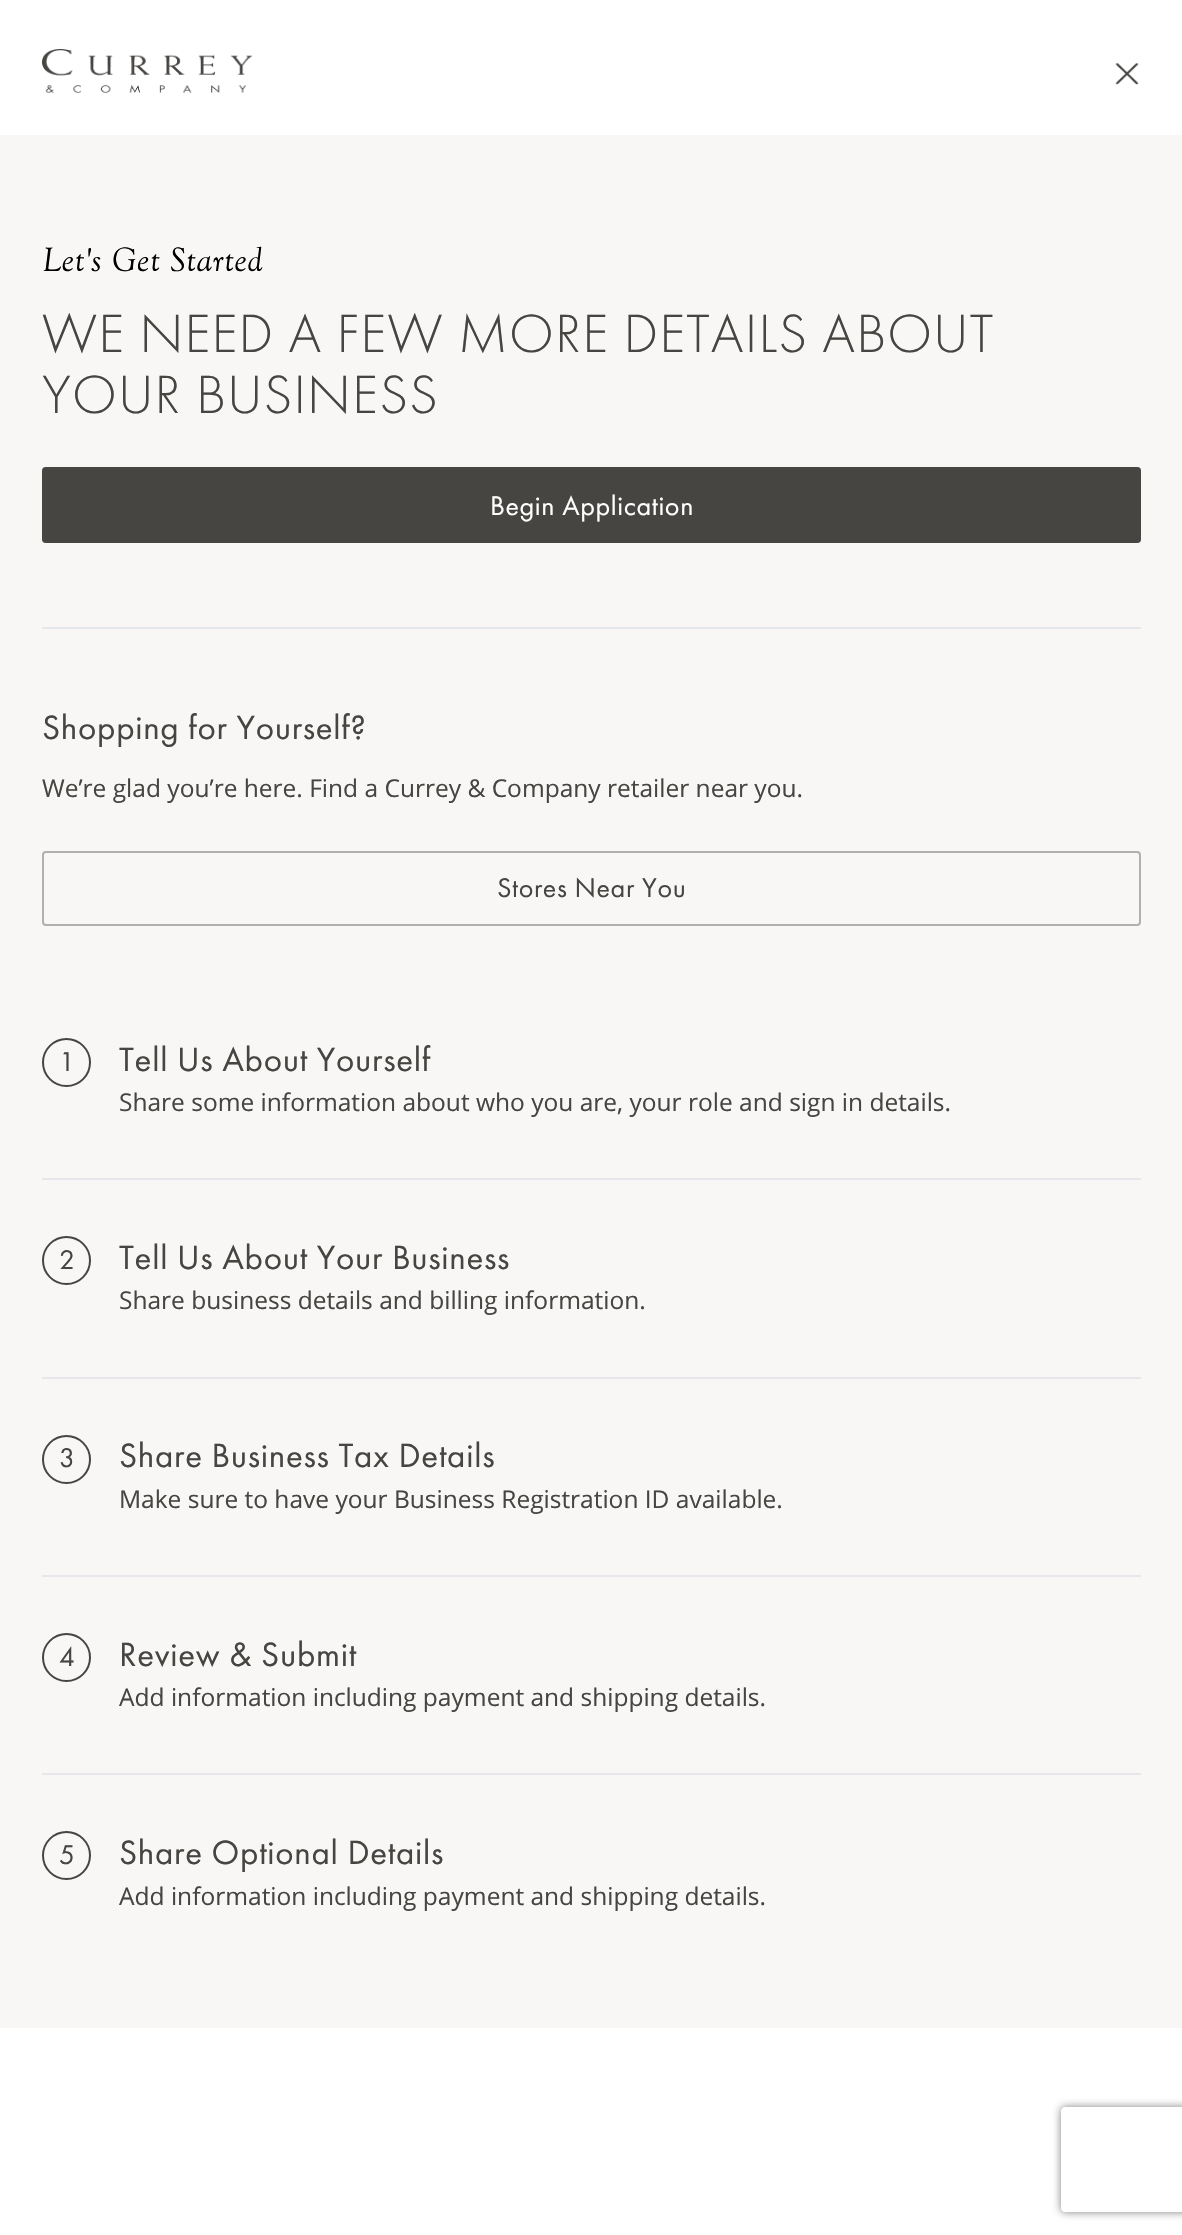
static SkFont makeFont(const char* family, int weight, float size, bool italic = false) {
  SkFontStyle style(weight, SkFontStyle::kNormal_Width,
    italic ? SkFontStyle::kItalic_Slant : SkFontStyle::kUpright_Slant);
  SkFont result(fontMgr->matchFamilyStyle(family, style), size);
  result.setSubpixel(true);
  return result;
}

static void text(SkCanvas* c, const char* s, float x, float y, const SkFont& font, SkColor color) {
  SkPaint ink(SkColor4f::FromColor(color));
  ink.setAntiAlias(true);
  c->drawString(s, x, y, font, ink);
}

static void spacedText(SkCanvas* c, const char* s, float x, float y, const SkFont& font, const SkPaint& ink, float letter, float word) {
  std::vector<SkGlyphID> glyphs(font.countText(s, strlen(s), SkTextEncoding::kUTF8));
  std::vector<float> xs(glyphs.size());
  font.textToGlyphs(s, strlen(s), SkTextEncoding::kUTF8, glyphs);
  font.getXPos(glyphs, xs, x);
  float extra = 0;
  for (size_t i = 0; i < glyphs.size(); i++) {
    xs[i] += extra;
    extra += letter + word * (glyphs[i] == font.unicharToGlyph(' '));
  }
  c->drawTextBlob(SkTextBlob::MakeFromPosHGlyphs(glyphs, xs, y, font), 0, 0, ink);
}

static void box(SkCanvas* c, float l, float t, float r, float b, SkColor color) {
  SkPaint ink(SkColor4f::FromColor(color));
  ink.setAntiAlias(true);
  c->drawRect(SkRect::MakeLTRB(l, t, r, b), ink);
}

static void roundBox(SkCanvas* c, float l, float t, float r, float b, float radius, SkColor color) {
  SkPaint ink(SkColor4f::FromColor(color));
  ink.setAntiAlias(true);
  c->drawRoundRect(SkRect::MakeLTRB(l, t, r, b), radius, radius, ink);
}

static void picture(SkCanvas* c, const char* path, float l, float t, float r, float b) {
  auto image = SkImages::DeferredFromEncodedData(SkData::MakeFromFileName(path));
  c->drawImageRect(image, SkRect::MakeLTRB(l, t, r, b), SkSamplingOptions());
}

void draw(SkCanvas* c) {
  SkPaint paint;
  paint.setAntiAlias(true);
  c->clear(0xffffffff);
  picture(c, "img_01.png", 42, 49, 252, 93);
  picture(c, "img_02.png", 1115, 62, 1139, 85);
  box(c, 0, 135, 1182, 2028, 0xfff8f7f6);
  box(c, 42, 627, 1141, 629, 0xffe5e7eb);
  SkFont face1 = makeFont("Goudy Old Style", 400, 35, true);
  paint.setColor(0xff000000);
  spacedText(c, "Let's Get Started", 42, 271, face1, paint, 0.7f, 0);
  SkFont face2 = makeFont("Futura PT", 300, 56);
  paint.setColor(0xff464542);
  spacedText(c, "WE NEED A FEW MORE DETAILS ABOUT", 42, 352, face2, paint, 1.1f, 0);
  spacedText(c, "YOUR BUSINESS", 42, 413, face2, paint, 1.1f, 0);
  roundBox(c, 42, 467, 1141, 543, 4, 0xff464542);
  paint.setStyle(SkPaint::kStroke_Style);
  paint.setStrokeWidth(2);
  paint.setColor(0x66464542);
  c->drawRoundRect(SkRect::MakeLTRB(43, 468, 1140, 542), 3, 3, paint);
  SkFont face3 = makeFont("Futura PT", 400, 28);
  paint.setStyle(SkPaint::kFill_Style);
  paint.setColor(0xffffffff);
  spacedText(c, "Begin Application", 490, 515, face3, paint, 0.6f, 0);
  SkFont face4 = makeFont("Futura PT", 400, 35);
  paint.setColor(0xff464542);
  spacedText(c, "Shopping for Yourself?", 42, 739, face4, paint, 0.7f, 0);
  SkFont face5 = makeFont("Open Sans", 400, 24.5f);
  text(c, "We’re glad you’re here. Find a Currey & Company retailer near you.", 42, 797, face5, 0xff464542);
  paint.setStyle(SkPaint::kStroke_Style);
  paint.setColor(0xffb1b0ae);
  c->drawRoundRect(SkRect::MakeLTRB(43, 852, 1140, 925), 3, 3, paint);
  paint.setStyle(SkPaint::kFill_Style);
  paint.setColor(0xff464542);
  spacedText(c, "Stores Near You", 497, 897, face3, paint, 0.6f, 0);
  box(c, 42, 1178, 1141, 1180, 0xffe5e7eb);
  paint.setStyle(SkPaint::kStroke_Style);
  c->drawCircle(66.5f, 1062.5f, 23.5f, paint);
  text(c, "1", 59, 1071, face3, 0xff464542);
  paint.setStyle(SkPaint::kFill_Style);
  spacedText(c, "Tell Us About Yourself", 119, 1071, face4, paint, 0.7f, 0);
  text(c, "Share some information about who you are, your role and sign in details.", 119, 1111, face5, 0xff464542);
  box(c, 42, 1377, 1141, 1379, 0xffe5e7eb);
  paint.setStyle(SkPaint::kStroke_Style);
  c->drawCircle(66.5f, 1260.5f, 23.5f, paint);
  text(c, "2", 59, 1269, face3, 0xff464542);
  paint.setStyle(SkPaint::kFill_Style);
  spacedText(c, "Tell Us About Your Business", 119, 1269, face4, paint, 0.7f, 0);
  text(c, "Share business details and billing information.", 119, 1309, face5, 0xff464542);
  box(c, 42, 1575, 1141, 1577, 0xffe5e7eb);
  paint.setStyle(SkPaint::kStroke_Style);
  c->drawCircle(66.5f, 1459.5f, 23.5f, paint);
  text(c, "3", 59, 1467, face3, 0xff464542);
  paint.setStyle(SkPaint::kFill_Style);
  spacedText(c, "Share Business Tax Details", 119, 1467, face4, paint, 0.7f, 0);
  text(c, "Make sure to have your Business Registration ID available.", 119, 1508, face5, 0xff464542);
  box(c, 42, 1773, 1141, 1775, 0xffe5e7eb);
  paint.setStyle(SkPaint::kStroke_Style);
  c->drawCircle(66.5f, 1657.5f, 23.5f, paint);
  text(c, "4", 59, 1666, face3, 0xff464542);
  paint.setStyle(SkPaint::kFill_Style);
  spacedText(c, "Review & Submit", 119, 1666, face4, paint, 0.7f, 0);
  text(c, "Add information including payment and shipping details.", 119, 1706, face5, 0xff464542);
  paint.setStyle(SkPaint::kStroke_Style);
  c->drawCircle(66.5f, 1855.5f, 23.5f, paint);
  text(c, "5", 59, 1864, face3, 0xff464542);
  paint.setStyle(SkPaint::kFill_Style);
  spacedText(c, "Share Optional Details", 119, 1864, face4, paint, 0.7f, 0);
  text(c, "Add information including payment and shipping details.", 119, 1905, face5, 0xff464542);
  c->save();
  c->clipPath(SkPathBuilder(SkPathFillType::kEvenOdd).moveTo(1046, 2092).lineTo(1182, 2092).lineTo(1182, 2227).lineTo(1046, 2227).close().moveTo(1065, 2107).lineTo(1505, 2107).cubicTo(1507, 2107, 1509, 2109, 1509, 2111).lineTo(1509, 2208).cubicTo(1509, 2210, 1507, 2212, 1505, 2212).lineTo(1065, 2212).cubicTo(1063, 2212, 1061, 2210, 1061, 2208).lineTo(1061, 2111).cubicTo(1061, 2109, 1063, 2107, 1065, 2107).close().detach(), true);
  paint.setColor(0xff808080);
  paint.setMaskFilter(SkMaskFilter::MakeBlur(kNormal_SkBlurStyle, 4.5f));
  c->drawRoundRect(SkRect::MakeLTRB(1061, 2107, 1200, 2212), 4, 4, paint);
  paint.setMaskFilter(nullptr);
  c->restore();
}
